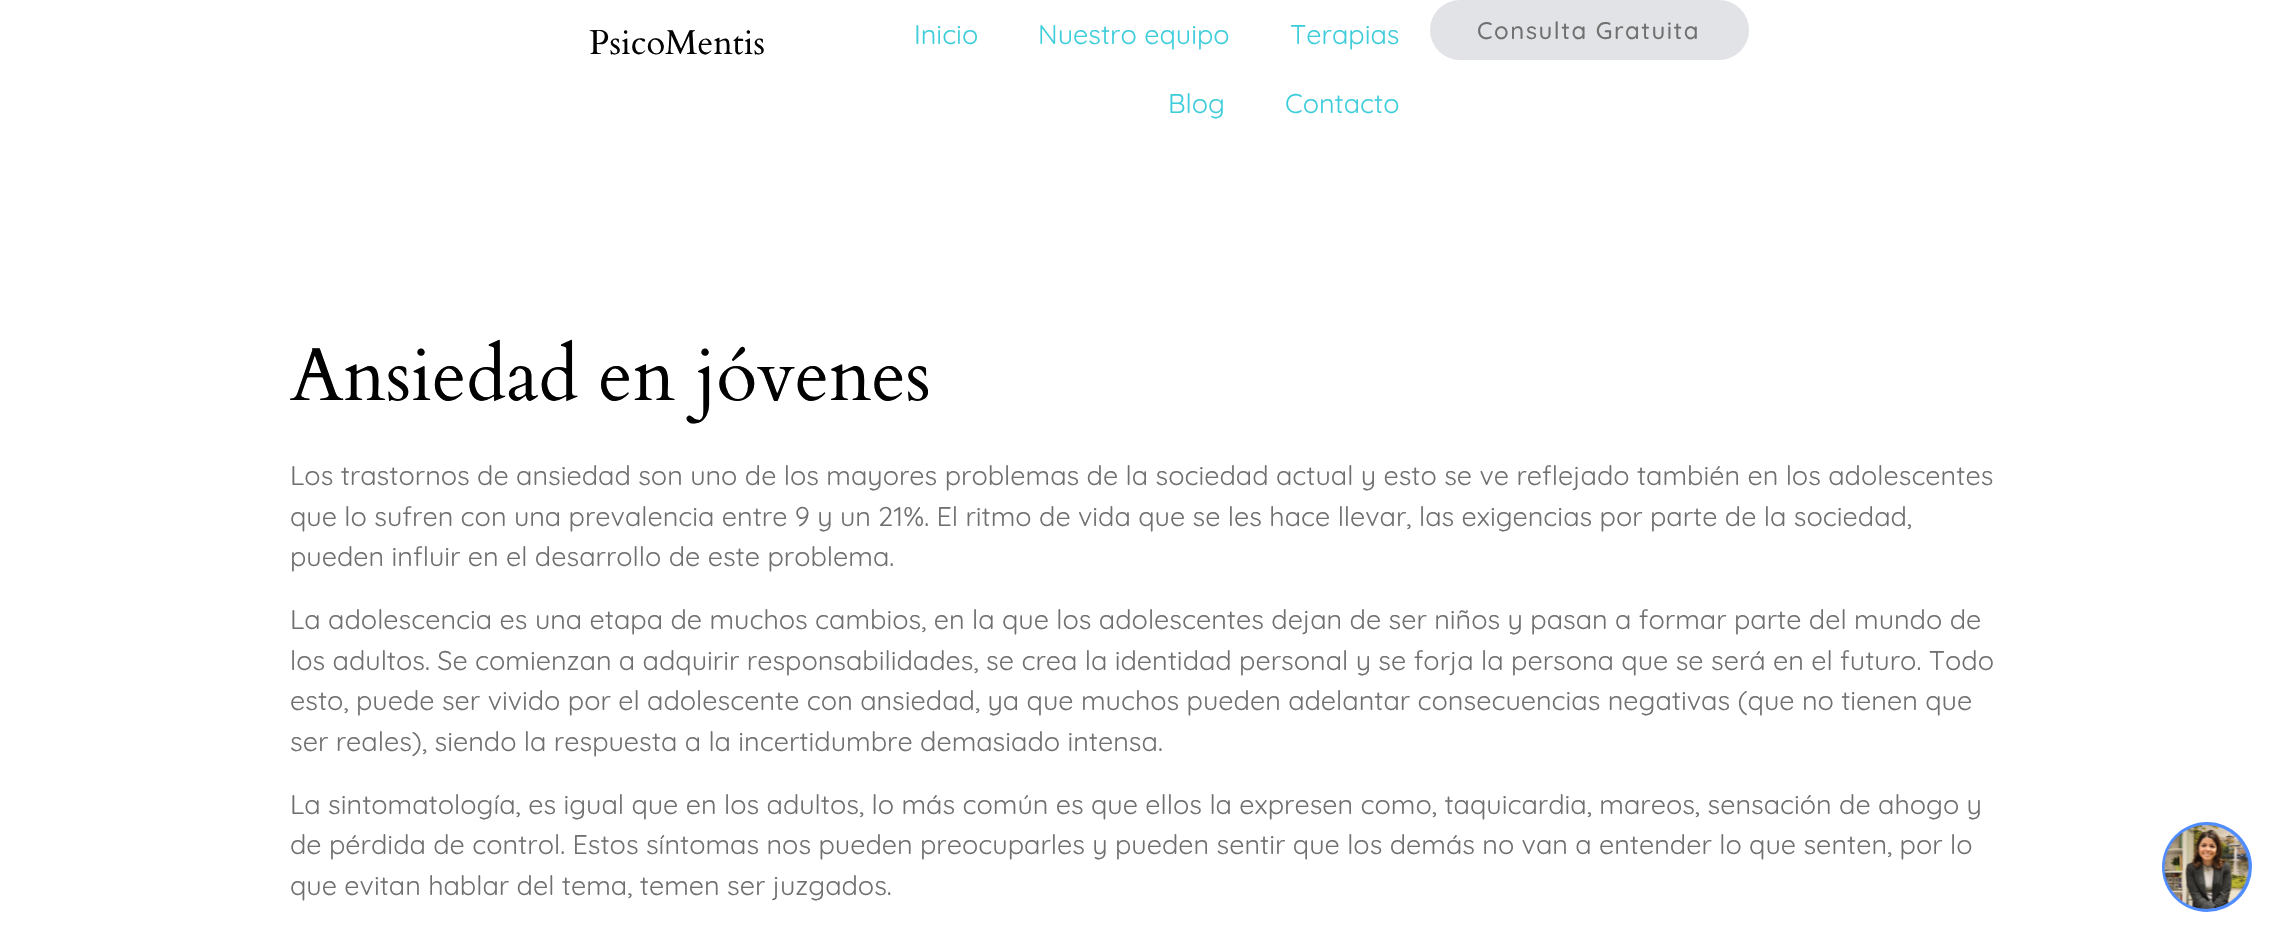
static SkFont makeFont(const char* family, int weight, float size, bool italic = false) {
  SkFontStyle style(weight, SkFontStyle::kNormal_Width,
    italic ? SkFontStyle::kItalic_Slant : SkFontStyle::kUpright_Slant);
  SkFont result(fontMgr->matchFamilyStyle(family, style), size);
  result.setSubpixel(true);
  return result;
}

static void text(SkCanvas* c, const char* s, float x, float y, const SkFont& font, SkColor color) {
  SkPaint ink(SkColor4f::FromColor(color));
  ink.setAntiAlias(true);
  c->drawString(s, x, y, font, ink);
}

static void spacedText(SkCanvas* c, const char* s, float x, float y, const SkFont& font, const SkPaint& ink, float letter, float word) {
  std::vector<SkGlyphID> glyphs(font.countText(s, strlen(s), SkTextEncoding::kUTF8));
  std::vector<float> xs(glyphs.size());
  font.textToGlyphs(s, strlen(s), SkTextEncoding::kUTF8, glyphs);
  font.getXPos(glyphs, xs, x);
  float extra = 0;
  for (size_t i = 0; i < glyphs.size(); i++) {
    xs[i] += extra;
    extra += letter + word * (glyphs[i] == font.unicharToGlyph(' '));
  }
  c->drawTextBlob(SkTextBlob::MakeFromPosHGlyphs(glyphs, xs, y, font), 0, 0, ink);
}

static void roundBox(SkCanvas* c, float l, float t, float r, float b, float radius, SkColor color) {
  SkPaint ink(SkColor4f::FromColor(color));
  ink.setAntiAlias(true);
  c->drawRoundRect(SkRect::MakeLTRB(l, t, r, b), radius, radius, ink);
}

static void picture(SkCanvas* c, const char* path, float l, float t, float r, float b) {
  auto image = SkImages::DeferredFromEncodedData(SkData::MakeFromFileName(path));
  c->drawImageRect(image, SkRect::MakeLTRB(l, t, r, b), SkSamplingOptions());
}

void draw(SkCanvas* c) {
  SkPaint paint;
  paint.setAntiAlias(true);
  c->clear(0xffffffff);
  SkFont face1 = makeFont("Cardo", 400, 34.5f);
  text(c, "PsicoMentis", 589, 54, face1, 0xff010101);
  SkFont face2 = makeFont("Quicksand", 400, 27);
  text(c, "Inicio", 914, 44, face2, 0xff3ecddb);
  text(c, "Nuestro equipo", 1038, 44, face2, 0xff3ecddb);
  text(c, "Terapias", 1290, 44, face2, 0xff3ecddb);
  text(c, "Blog", 1168, 113, face2, 0xff3ecddb);
  text(c, "Contacto", 1285, 113, face2, 0xff3ecddb);
  roundBox(c, 1430, 0, 1749, 60, 30, 0xffe2e3e6);
  SkFont face3 = makeFont("Quicksand", 500, 24);
  paint.setColor(0xff707070);
  spacedText(c, "Consulta Gratuita", 1477, 39, face3, paint, 1.5f, 0);
  SkFont face4 = makeFont("Cardo", 400, 75);
  text(c, "Ansiedad en jóvenes", 290, 400, face4, 0xff010101);
  text(c, "Los trastornos de ansiedad son uno de los mayores problemas de la sociedad actual y esto se ve reflejado también en los adolescentes", 290, 485, face2, 0xff707070);
  text(c, "que lo sufren con una prevalencia entre 9 y un 21%. El ritmo de vida que se les hace llevar, las exigencias por parte de la sociedad,", 290, 526, face2, 0xff707070);
  text(c, "pueden influir en el desarrollo de este problema.", 290, 566, face2, 0xff707070);
  text(c, "La adolescencia es una etapa de muchos cambios, en la que los adolescentes dejan de ser niños y pasan a formar parte del mundo de", 290, 629, face2, 0xff707070);
  text(c, "los adultos. Se comienzan a adquirir responsabilidades, se crea la identidad personal y se forja la persona que se será en el futuro. Todo", 290, 670, face2, 0xff707070);
  text(c, "esto, puede ser vivido por el adolescente con ansiedad, ya que muchos pueden adelantar consecuencias negativas (que no tienen que", 290, 710, face2, 0xff707070);
  text(c, "ser reales), siendo la respuesta a la incertidumbre demasiado intensa.", 290, 751, face2, 0xff707070);
  text(c, "La sintomatología, es igual que en los adultos, lo más común es que ellos la expresen como, taquicardia, mareos, sensación de ahogo y", 290, 814, face2, 0xff707070);
  text(c, "de pérdida de control. Estos síntomas nos pueden preocuparles y pueden sentir que los demás no van a entender lo que senten, por lo", 290, 854, face2, 0xff707070);
  text(c, "que evitan hablar del tema, temen ser juzgados.", 290, 895, face2, 0xff707070);
  paint.setColor(0xff4e8cff);
  c->drawCircle(2207, 867, 45, paint);
  picture(c, "img_01.png", 2164, 825, 2249, 909);
}
